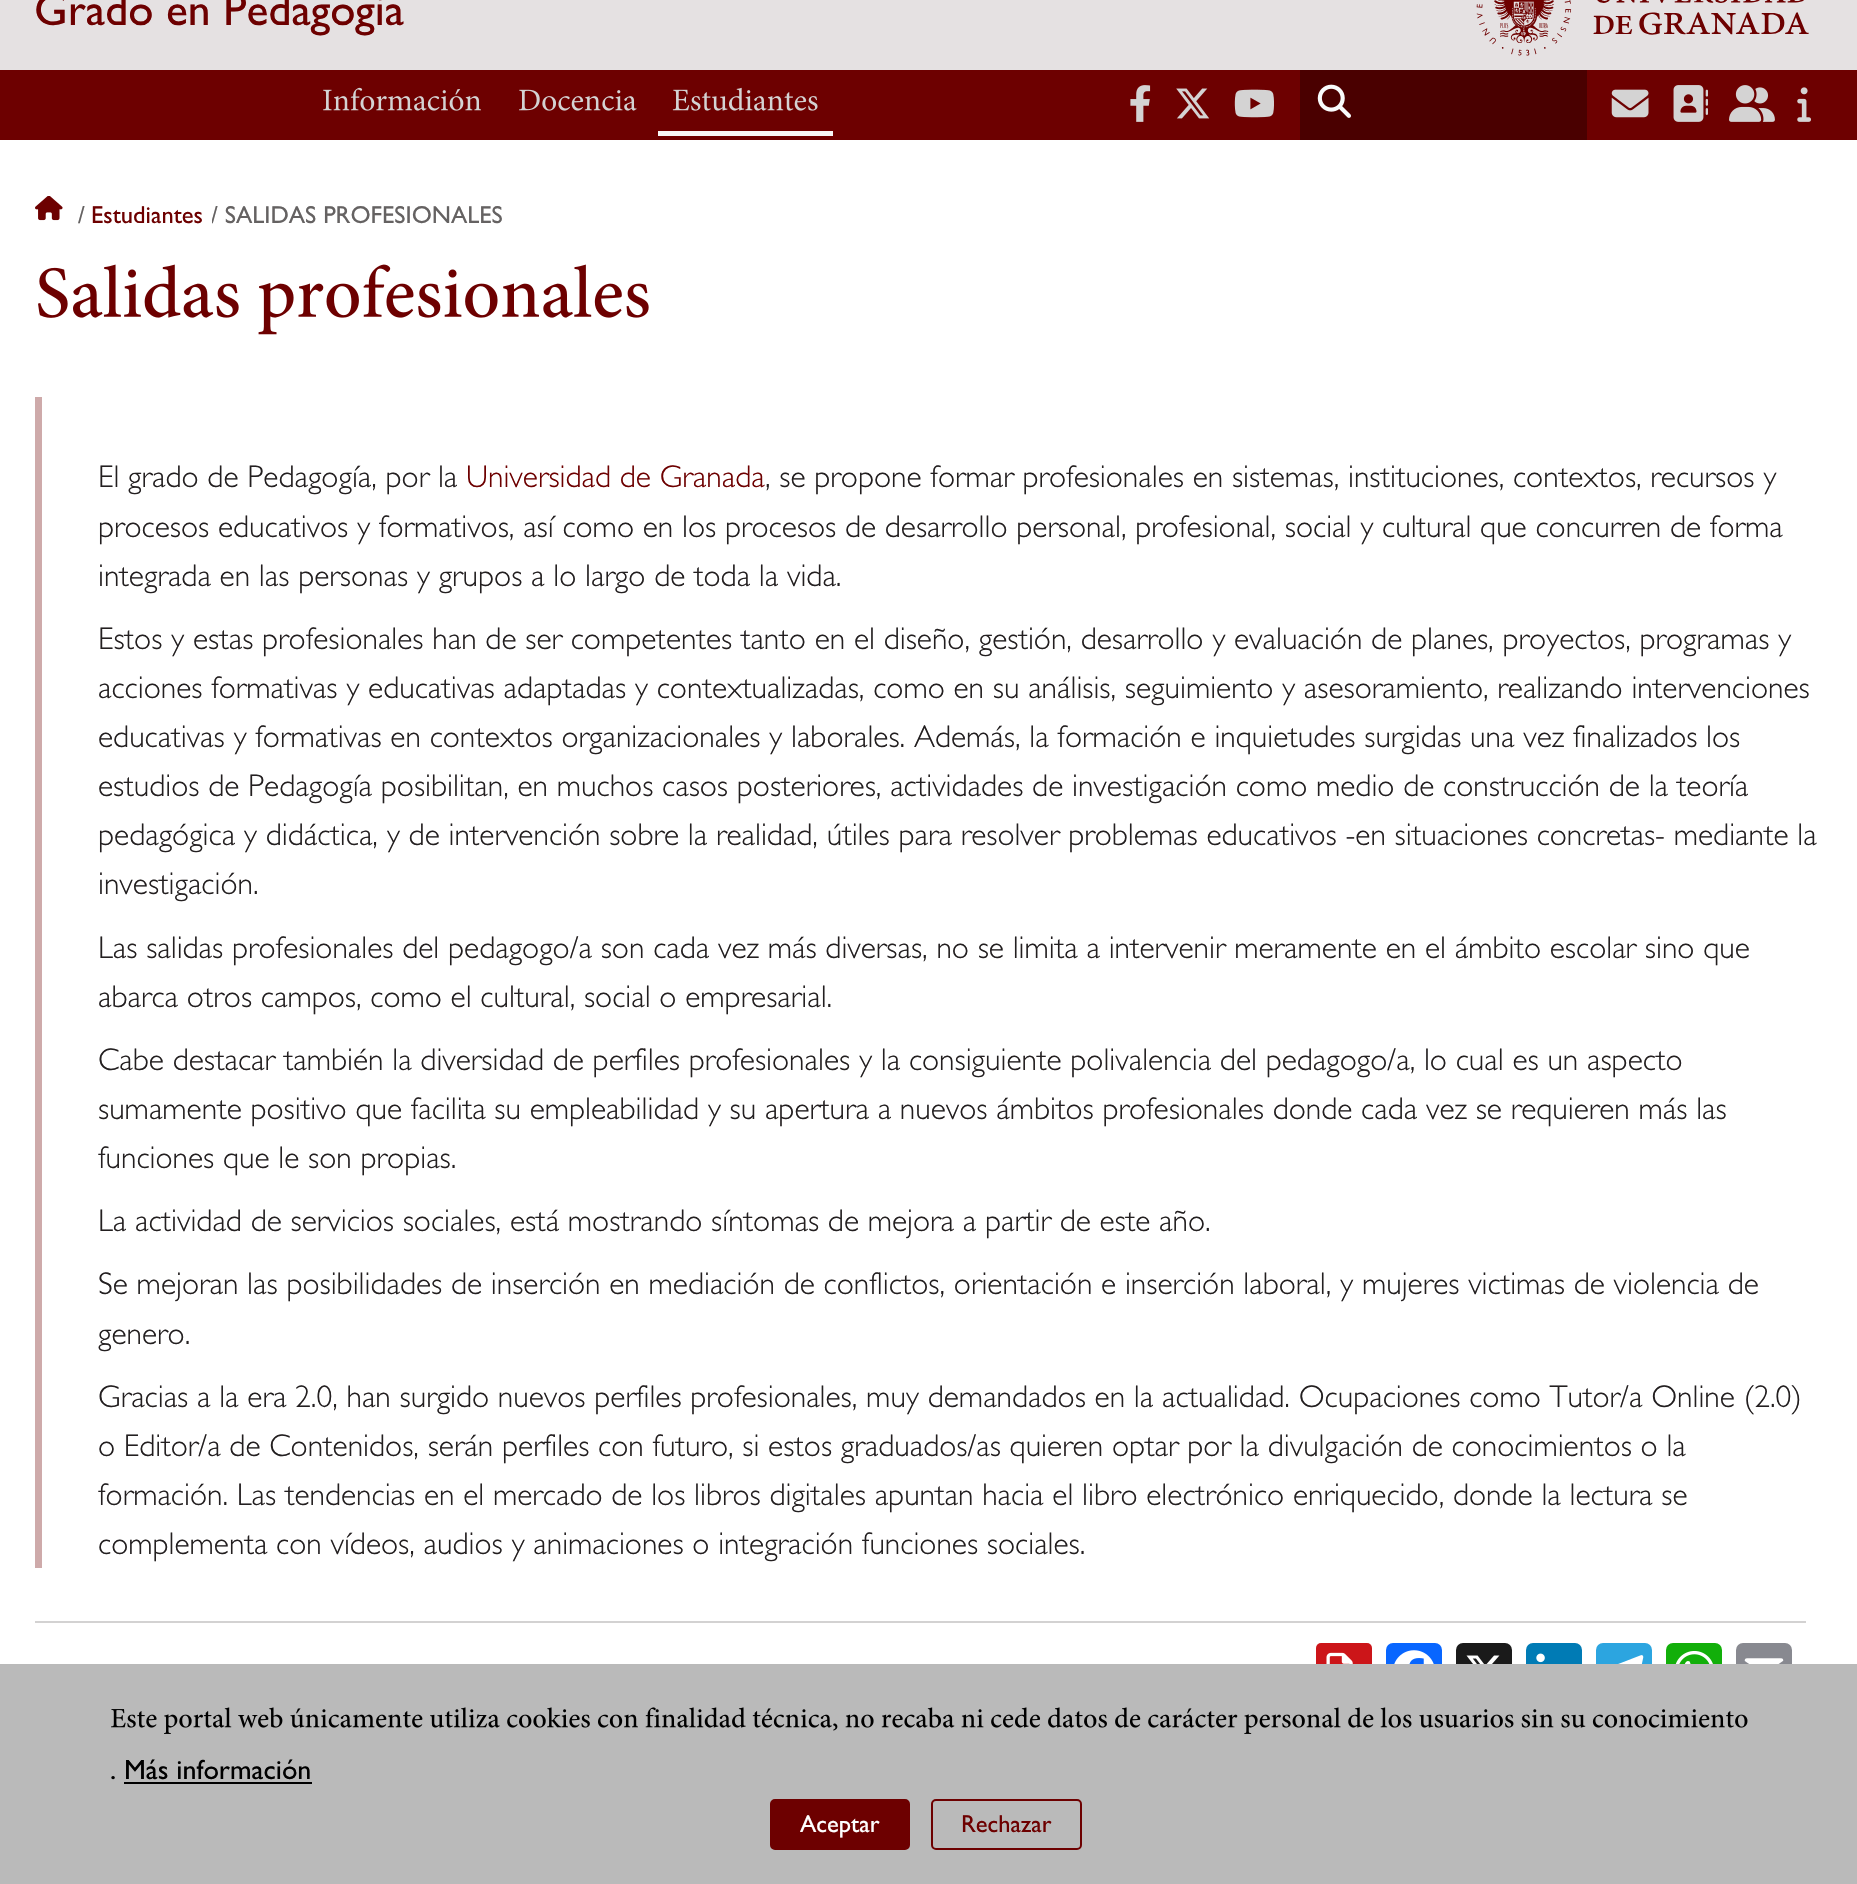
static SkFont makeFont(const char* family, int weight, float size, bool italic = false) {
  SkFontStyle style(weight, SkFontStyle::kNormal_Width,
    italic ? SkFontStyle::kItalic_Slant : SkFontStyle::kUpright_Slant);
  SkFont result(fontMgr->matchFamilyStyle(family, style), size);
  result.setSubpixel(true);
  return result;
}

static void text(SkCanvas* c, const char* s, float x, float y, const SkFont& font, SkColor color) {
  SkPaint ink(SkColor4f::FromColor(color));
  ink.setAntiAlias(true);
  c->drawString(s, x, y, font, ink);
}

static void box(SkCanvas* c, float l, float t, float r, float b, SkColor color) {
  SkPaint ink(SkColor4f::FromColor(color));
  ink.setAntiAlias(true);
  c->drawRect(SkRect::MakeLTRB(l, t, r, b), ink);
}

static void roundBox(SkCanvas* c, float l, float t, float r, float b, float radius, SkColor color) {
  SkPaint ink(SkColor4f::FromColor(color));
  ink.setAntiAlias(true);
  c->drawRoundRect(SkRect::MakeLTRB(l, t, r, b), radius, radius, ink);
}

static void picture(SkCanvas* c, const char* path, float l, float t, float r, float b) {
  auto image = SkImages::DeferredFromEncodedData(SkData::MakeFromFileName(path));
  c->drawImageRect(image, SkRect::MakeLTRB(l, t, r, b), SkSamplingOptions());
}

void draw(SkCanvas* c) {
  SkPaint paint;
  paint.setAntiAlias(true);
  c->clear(0xffffffff);
  box(c, 0, 70, 1857, 140, 0xff6d0000);
  box(c, 0, 0, 1857, 70, 0xffe5e1e2);
  SkFont face1 = makeFont("Gill Sans", 400, 45.5f);
  text(c, "Grado en Pedagogía", 34, 25, face1, 0xff6d0000);
  picture(c, "img_01.png", 1476, 0, 1809, 56);
  picture(c, "img_02.png", 323, 87, 481, 111);
  picture(c, "img_03.png", 519, 89, 637, 111);
  picture(c, "img_04.png", 672, 87, 818, 111);
  box(c, 658, 131, 833, 136, 0xfff7f7f7);
  picture(c, "img_05.png", 1130, 85, 1151, 122);
  picture(c, "img_06.png", 1176, 88, 1210, 119);
  picture(c, "img_07.png", 1234, 89, 1274, 118);
  box(c, 1300, 70, 1587, 140, 0xff4a0000);
  picture(c, "img_08.png", 1317, 84, 1351, 118);
  picture(c, "img_09.png", 1611, 89, 1649, 118);
  picture(c, "img_10.png", 1673, 85, 1708, 122);
  picture(c, "img_11.png", 1729, 85, 1775, 122);
  picture(c, "img_12.png", 1797, 87, 1811, 122);
  picture(c, "img_13.png", 35, 196, 63, 221);
  SkFont face2 = makeFont("Gill Sans", 400, 24.5f);
  text(c, "/", 78, 223, face2, 0xff656262);
  text(c, "Estudiantes", 91, 223, face2, 0xff6d0000);
  c->save();
  c->clipRect(SkRect::MakeLTRB(212, 196, 502, 231));
  text(c, "/ SALIDAS PROFESIONALES", 211, 223, face2, 0xff656262);
  c->restore();
  picture(c, "img_14.png", 38, 264, 649, 335);
  box(c, 35, 397, 42, 1568, 0xffceaaaa);
  SkFont face3 = makeFont("Gill Sans", 300, 31.5f);
  text(c, "El grado de Pedagogía, por la", 98, 487, face3, 0xff231f20);
  text(c, "Universidad de Granada", 466, 487, face3, 0xff6d0000);
  text(c, ", se propone formar profesionales en sistemas, instituciones, contextos, recursos y", 765, 487, face3, 0xff231f20);
  text(c, "procesos educativos y formativos, así como en los procesos de desarrollo personal, profesional, social y cultural que concurren de forma", 98, 537, face3, 0xff231f20);
  text(c, "integrada en las personas y grupos a lo largo de toda la vida.", 98, 586, face3, 0xff231f20);
  text(c, "Estos y estas profesionales han de ser competentes tanto en el diseño, gestión, desarrollo y evaluación de planes, proyectos, programas y", 98, 649, face3, 0xff231f20);
  text(c, "acciones formativas y educativas adaptadas y contextualizadas, como en su análisis, seguimiento y asesoramiento, realizando intervenciones", 98, 698, face3, 0xff231f20);
  text(c, "educativas y formativas en contextos organizacionales y laborales. Además, la formación e inquietudes surgidas una vez finalizados los", 98, 747, face3, 0xff231f20);
  text(c, "estudios de Pedagogía posibilitan, en muchos casos posteriores, actividades de investigación como medio de construcción de la teoría", 98, 796, face3, 0xff231f20);
  text(c, "pedagógica y didáctica, y de intervención sobre la realidad, útiles para resolver problemas educativos -en situaciones concretas- mediante la", 98, 845, face3, 0xff231f20);
  text(c, "investigación.", 98, 894, face3, 0xff231f20);
  text(c, "Las salidas profesionales del pedagogo/a son cada vez más diversas, no se limita a intervenir meramente en el ámbito escolar sino que", 98, 958, face3, 0xff231f20);
  text(c, "abarca otros campos, como el cultural, social o empresarial.", 98, 1007, face3, 0xff231f20);
  text(c, "Cabe destacar también la diversidad de perfiles profesionales y la consiguiente polivalencia del pedagogo/a, lo cual es un aspecto", 98, 1070, face3, 0xff231f20);
  text(c, "sumamente positivo que facilita su empleabilidad y su apertura a nuevos ámbitos profesionales donde cada vez se requieren más las", 98, 1119, face3, 0xff231f20);
  text(c, "funciones que le son propias.", 98, 1168, face3, 0xff231f20);
  text(c, "La actividad de servicios sociales, está mostrando síntomas de mejora a partir de este año.", 98, 1231, face3, 0xff231f20);
  text(c, "Se mejoran las posibilidades de inserción en mediación de conflictos, orientación e inserción laboral, y mujeres victimas de violencia de", 98, 1294, face3, 0xff231f20);
  text(c, "genero.", 98, 1344, face3, 0xff231f20);
  text(c, "Gracias a la era 2.0, han surgido nuevos perfiles profesionales, muy demandados en la actualidad. Ocupaciones como Tutor/a Online (2.0)", 98, 1407, face3, 0xff231f20);
  text(c, "o Editor/a de Contenidos, serán perfiles con futuro, si estos graduados/as quieren optar por la divulgación de conocimientos o la", 98, 1456, face3, 0xff231f20);
  text(c, "formación. Las tendencias en el mercado de los libros digitales apuntan hacia el libro electrónico enriquecido, donde la lectura se", 98, 1505, face3, 0xff231f20);
  text(c, "complementa con vídeos, audios y animaciones o integración funciones sociales.", 98, 1554, face3, 0xff231f20);
  box(c, 35, 1621, 1806, 1623, 0xffd3d2d2);
  roundBox(c, 1316, 1643, 1372, 1699, 5, 0xffcc1519);
  picture(c, "img_15.png", 1326, 1652, 1353, 1664);
  roundBox(c, 1386, 1643, 1442, 1699, 7, 0xff0866ff);
  picture(c, "img_16.png", 1394, 1650, 1434, 1664);
  roundBox(c, 1456, 1643, 1512, 1699, 7, 0xff1a1a1a);
  picture(c, "img_17.png", 1466, 1655, 1500, 1664);
  roundBox(c, 1526, 1643, 1582, 1699, 7, 0xff007bb5);
  picture(c, "img_18.png", 1536, 1653, 1545, 1663);
  roundBox(c, 1596, 1643, 1652, 1699, 7, 0xff2ca5e0);
  picture(c, "img_19.png", 1618, 1655, 1644, 1664);
  roundBox(c, 1666, 1643, 1722, 1699, 7, 0xff12af0a);
  picture(c, "img_20.png", 1675, 1651, 1713, 1664);
  roundBox(c, 1736, 1643, 1792, 1699, 7, 0xff888990);
  picture(c, "img_21.png", 1744, 1658, 1784, 1664);
  box(c, 0, 1664, 1857, 1884, 0xffbababa);
  picture(c, "img_22.png", 111, 1707, 1748, 1734);
  SkFont face4 = makeFont("Gill Sans", 400, 28);
  text(c, ". Más información", 110, 1779, face4, 0xff000000);
  box(c, 124, 1782, 312, 1784, 0xff000000);
  paint.setColor(0xff6d0000);
  c->drawRoundRect(SkRect::MakeLTRB(771, 1800, 909, 1849), 4, 4, paint);
  paint.setStyle(SkPaint::kStroke_Style);
  paint.setStrokeWidth(2);
  c->drawRoundRect(SkRect::MakeLTRB(771, 1800, 909, 1849), 4, 4, paint);
  text(c, "Aceptar", 800, 1832, face2, 0xfffeffff);
  c->drawRoundRect(SkRect::MakeLTRB(932, 1800, 1081, 1849), 4, 4, paint);
  text(c, "Rechazar", 961, 1832, face2, 0xff6d0000);
}
